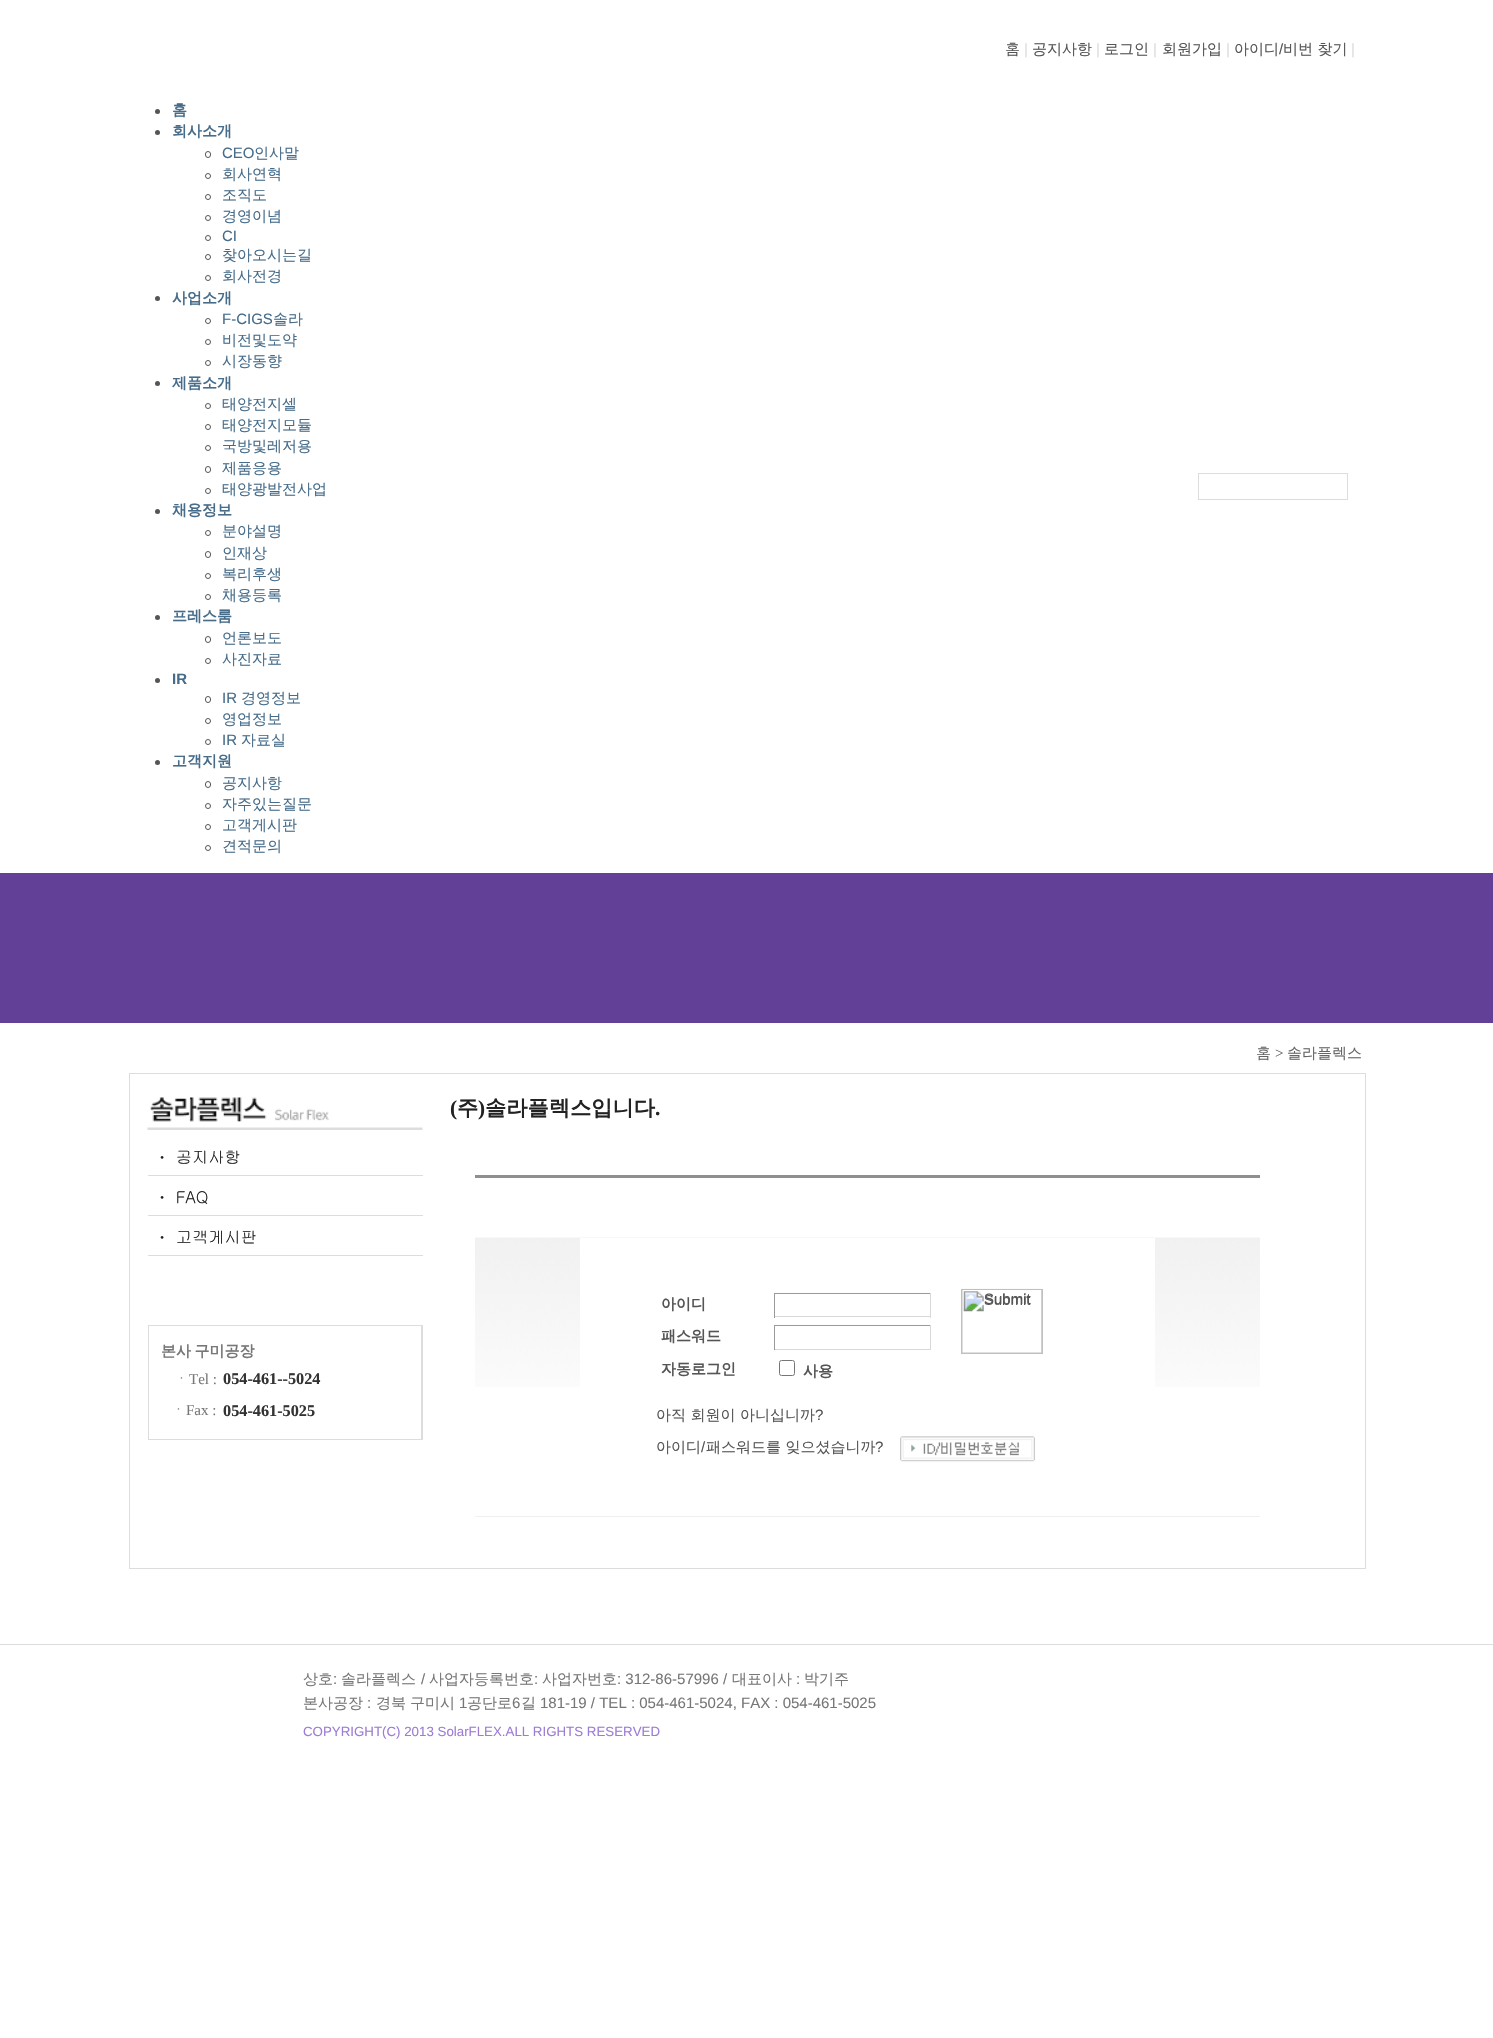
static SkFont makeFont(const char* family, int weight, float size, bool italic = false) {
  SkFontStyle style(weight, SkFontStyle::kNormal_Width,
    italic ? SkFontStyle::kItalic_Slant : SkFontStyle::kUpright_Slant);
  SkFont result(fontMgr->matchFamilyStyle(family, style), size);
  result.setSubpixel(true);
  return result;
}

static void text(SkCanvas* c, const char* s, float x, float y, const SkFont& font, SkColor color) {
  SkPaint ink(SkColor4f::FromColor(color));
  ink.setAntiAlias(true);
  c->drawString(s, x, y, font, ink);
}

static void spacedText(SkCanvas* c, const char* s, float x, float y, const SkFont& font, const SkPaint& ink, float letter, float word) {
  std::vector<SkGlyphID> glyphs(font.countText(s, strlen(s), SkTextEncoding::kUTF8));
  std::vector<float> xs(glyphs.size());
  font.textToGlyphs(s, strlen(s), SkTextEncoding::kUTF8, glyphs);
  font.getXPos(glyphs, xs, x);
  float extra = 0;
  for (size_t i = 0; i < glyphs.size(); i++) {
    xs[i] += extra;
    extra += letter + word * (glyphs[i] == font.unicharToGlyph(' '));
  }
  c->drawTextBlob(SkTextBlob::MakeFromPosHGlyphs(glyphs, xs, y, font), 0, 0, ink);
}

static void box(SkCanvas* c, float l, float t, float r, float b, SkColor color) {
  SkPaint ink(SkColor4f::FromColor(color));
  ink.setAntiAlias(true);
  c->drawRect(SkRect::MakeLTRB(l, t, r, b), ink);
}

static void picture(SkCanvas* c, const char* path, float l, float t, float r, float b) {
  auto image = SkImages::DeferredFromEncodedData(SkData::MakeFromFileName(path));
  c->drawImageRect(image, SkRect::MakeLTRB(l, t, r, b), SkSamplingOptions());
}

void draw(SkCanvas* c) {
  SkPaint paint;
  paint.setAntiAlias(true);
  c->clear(0xffffffff);
  SkFont face1 = makeFont("WenQuanYi Zen Hei", 500, 15);
  text(c, "홈", 1005, 54, face1, 0xff555555);
  SkFont face2 = makeFont("Liberation Sans", 400, 15);
  text(c, "|", 1024, 54, face2, 0xffdddddd);
  text(c, "공지사항", 1032, 54, face1, 0xff555555);
  text(c, "|", 1096, 54, face2, 0xffdddddd);
  text(c, "로그인", 1104, 54, face1, 0xff555555);
  text(c, "|", 1153, 54, face2, 0xffdddddd);
  text(c, "회원가입", 1162, 54, face1, 0xff555555);
  text(c, "|", 1226, 54, face2, 0xffdddddd);
  text(c, "아이디", 1234, 54, face1, 0xff555555);
  text(c, "/", 1279, 54, face2, 0xff555555);
  text(c, "비번 찾기", 1283, 54, face1, 0xff555555);
  text(c, "|", 1351, 54, face2, 0xffdddddd);
  paint.setColor(0xff555555);
  c->drawCircle(157.5f, 111.5f, 2.5f, paint);
  SkFont face3 = makeFont("WenQuanYi Zen Hei", 700, 15);
  text(c, "홈", 172, 115, face3, 0xff466c8a);
  c->drawCircle(157.5f, 132.5f, 2.5f, paint);
  text(c, "회사소개", 172, 136, face3, 0xff466c8a);
  paint.setStyle(SkPaint::kStroke_Style);
  paint.setStrokeWidth(1);
  c->drawRoundRect(SkRect::MakeLTRB(205.5f, 151.5f, 210.5f, 157.5f), 2.5f, 2.5f, paint);
  text(c, "CEO", 222, 158, face2, 0xff466c8a);
  text(c, "인사말", 254, 158, face1, 0xff466c8a);
  c->drawCircle(208, 176, 2.5f, paint);
  text(c, "회사연혁", 222, 179, face1, 0xff466c8a);
  c->drawCircle(208, 197, 2.5f, paint);
  text(c, "조직도", 222, 200, face1, 0xff466c8a);
  c->drawCircle(208, 218, 2.5f, paint);
  text(c, "경영이념", 222, 221, face1, 0xff466c8a);
  c->drawCircle(208, 238, 2.5f, paint);
  text(c, "CI", 222, 241, face2, 0xff466c8a);
  c->drawCircle(208, 257, 2.5f, paint);
  text(c, "찾아오시는길", 222, 260, face1, 0xff466c8a);
  c->drawCircle(208, 278, 2.5f, paint);
  text(c, "회사전경", 222, 281, face1, 0xff466c8a);
  paint.setStyle(SkPaint::kFill_Style);
  c->drawCircle(157.5f, 298.5f, 2.5f, paint);
  text(c, "사업소개", 172, 303, face3, 0xff466c8a);
  paint.setStyle(SkPaint::kStroke_Style);
  c->drawCircle(208, 321, 2.5f, paint);
  text(c, "F-CIGS", 222, 324, face2, 0xff466c8a);
  text(c, "솔라", 273, 324, face1, 0xff466c8a);
  c->drawCircle(208, 342, 2.5f, paint);
  text(c, "비전및도약", 222, 345, face1, 0xff466c8a);
  c->drawCircle(208, 363, 2.5f, paint);
  text(c, "시장동향", 222, 366, face1, 0xff466c8a);
  paint.setStyle(SkPaint::kFill_Style);
  c->drawCircle(157.5f, 383.5f, 2.5f, paint);
  text(c, "제품소개", 172, 388, face3, 0xff466c8a);
  paint.setStyle(SkPaint::kStroke_Style);
  c->drawCircle(208, 406, 2.5f, paint);
  text(c, "태양전지셀", 222, 409, face1, 0xff466c8a);
  c->drawCircle(208, 427, 2.5f, paint);
  text(c, "태양전지모듈", 222, 430, face1, 0xff466c8a);
  c->drawCircle(208, 448, 2.5f, paint);
  text(c, "국방및레저용", 222, 451, face1, 0xff466c8a);
  c->drawRoundRect(SkRect::MakeLTRB(205.5f, 466.5f, 210.5f, 472.5f), 2.5f, 2.5f, paint);
  text(c, "제품응용", 222, 473, face1, 0xff466c8a);
  c->drawCircle(208, 491, 2.5f, paint);
  text(c, "태양광발전사업", 222, 494, face1, 0xff466c8a);
  paint.setStyle(SkPaint::kFill_Style);
  c->drawCircle(157.5f, 511.5f, 2.5f, paint);
  text(c, "채용정보", 172, 515, face3, 0xff466c8a);
  paint.setStyle(SkPaint::kStroke_Style);
  c->drawCircle(208, 533, 2.5f, paint);
  text(c, "분야설명", 222, 536, face1, 0xff466c8a);
  c->drawRoundRect(SkRect::MakeLTRB(205.5f, 551.5f, 210.5f, 557.5f), 2.5f, 2.5f, paint);
  text(c, "인재상", 222, 558, face1, 0xff466c8a);
  c->drawCircle(208, 576, 2.5f, paint);
  text(c, "복리후생", 222, 579, face1, 0xff466c8a);
  c->drawCircle(208, 597, 2.5f, paint);
  text(c, "채용등록", 222, 600, face1, 0xff466c8a);
  paint.setStyle(SkPaint::kFill_Style);
  c->drawCircle(157.5f, 617.5f, 2.5f, paint);
  text(c, "프레스룸", 172, 621, face3, 0xff466c8a);
  paint.setStyle(SkPaint::kStroke_Style);
  c->drawRoundRect(SkRect::MakeLTRB(205.5f, 636.5f, 210.5f, 642.5f), 2.5f, 2.5f, paint);
  text(c, "언론보도", 222, 643, face1, 0xff466c8a);
  c->drawCircle(208, 661, 2.5f, paint);
  text(c, "사진자료", 222, 664, face1, 0xff466c8a);
  paint.setStyle(SkPaint::kFill_Style);
  c->drawCircle(157.5f, 680.5f, 2.5f, paint);
  SkFont face4 = makeFont("Liberation Sans", 700, 15);
  text(c, "IR", 172, 684, face4, 0xff466c8a);
  paint.setStyle(SkPaint::kStroke_Style);
  c->drawRoundRect(SkRect::MakeLTRB(205.5f, 696.5f, 210.5f, 702.5f), 2.5f, 2.5f, paint);
  text(c, "IR", 222, 703, face2, 0xff466c8a);
  text(c, "경영정보", 241, 703, face1, 0xff466c8a);
  c->drawCircle(208, 721, 2.5f, paint);
  text(c, "영업정보", 222, 724, face1, 0xff466c8a);
  c->drawCircle(208, 742, 2.5f, paint);
  text(c, "IR", 222, 745, face2, 0xff466c8a);
  text(c, "자료실", 241, 745, face1, 0xff466c8a);
  paint.setStyle(SkPaint::kFill_Style);
  c->drawCircle(157.5f, 762.5f, 2.5f, paint);
  text(c, "고객지원", 172, 766, face3, 0xff466c8a);
  paint.setStyle(SkPaint::kStroke_Style);
  c->drawRoundRect(SkRect::MakeLTRB(205.5f, 781.5f, 210.5f, 787.5f), 2.5f, 2.5f, paint);
  text(c, "공지사항", 222, 788, face1, 0xff466c8a);
  c->drawCircle(208, 806, 2.5f, paint);
  text(c, "자주있는질문", 222, 809, face1, 0xff466c8a);
  c->drawCircle(208, 827, 2.5f, paint);
  text(c, "고객게시판", 222, 830, face1, 0xff466c8a);
  c->drawCircle(208, 848, 2.5f, paint);
  text(c, "견적문의", 222, 851, face1, 0xff466c8a);
  paint.setColor(0xffdddddd);
  c->drawRect(SkRect::MakeLTRB(1198.5f, 473.5f, 1347.5f, 499.5f), paint);
  box(c, 0, 873, 1493, 1023, 0xff624097);
  text(c, "홈", 1256, 1058, face1, 0xff666666);
  SkFont face5 = makeFont("Liberation Serif", 400, 15);
  text(c, ">", 1275, 1058, face5, 0xff666666);
  text(c, "솔라플렉스", 1287, 1058, face1, 0xff666666);
  box(c, 129, 1073, 1366, 1569, 0xffdddddd);
  box(c, 130, 1074, 1365, 1568, 0xffffffff);
  picture(c, "img_01.png", 147, 1097, 423, 1130);
  box(c, 148, 1175, 423, 1176, 0xffdddddd);
  SkFont face6 = makeFont("Gulim", 400, 16.25f);
  text(c, "ㆍ 공지사항", 154, 1163, face6, 0xff222222);
  box(c, 148, 1215, 423, 1216, 0xffdddddd);
  text(c, "ㆍ FAQ", 154, 1203, face6, 0xff222222);
  box(c, 148, 1255, 423, 1256, 0xffdddddd);
  text(c, "ㆍ 고객게시판", 154, 1243, face6, 0xff222222);
  box(c, 148, 1325, 423, 1440, 0xffdddddd);
  box(c, 149, 1326, 421, 1439, 0xffffffff);
  paint.setStyle(SkPaint::kFill_Style);
  paint.setColor(0xff777777);
  spacedText(c, "본사 구미공장", 161, 1356, face3, paint, 0, -1);
  text(c, "ㆍ", 174, 1384, face1, 0xff777777);
  text(c, "Tel :", 189, 1384, face5, 0xff777777);
  SkFont face7 = makeFont("Liberation Serif", 700, 16.25f);
  text(c, "054-461--5024", 223, 1384, face7, 0xff333333);
  text(c, "ㆍ", 171, 1415, face1, 0xff777777);
  text(c, "Fax :", 186, 1415, face5, 0xff777777);
  text(c, "054-461-5025", 223, 1416, face7, 0xff333333);
  SkFont face8 = makeFont("Liberation Serif", 700, 21.25f);
  text(c, "(", 450, 1115, face8, 0xff222222);
  SkFont face9 = makeFont("WenQuanYi Zen Hei", 700, 21.25f);
  text(c, "주", 457, 1115, face9, 0xff222222);
  text(c, ")", 478, 1115, face8, 0xff222222);
  text(c, "솔라플렉스입니다", 485, 1115, face9, 0xff222222);
  text(c, ".", 655, 1115, face8, 0xff222222);
  box(c, 475, 1175, 1260, 1178, 0xff8f8f8f);
  picture(c, "img_02.png", 475, 1237, 1260, 1387);
  box(c, 580, 1238, 1155, 1387, 0xffffffff);
  text(c, "아이디", 661, 1309, face3, 0xff555555);
  box(c, 774, 1293, 931, 1294, 0xff9a9a9a);
  box(c, 930, 1293, 931, 1318, 0xffd8d8d8);
  box(c, 774, 1316, 931, 1317, 0xffd8d8d8);
  box(c, 774, 1293, 775, 1318, 0xff9a9a9a);
  text(c, "패스워드", 661, 1341, face3, 0xff555555);
  box(c, 774, 1325, 931, 1326, 0xff9a9a9a);
  box(c, 930, 1325, 931, 1350, 0xffd8d8d8);
  box(c, 774, 1349, 931, 1350, 0xffd8d8d8);
  box(c, 774, 1325, 775, 1350, 0xff9a9a9a);
  text(c, "자동로그인", 661, 1374, face3, 0xff555555);
  paint.setStyle(SkPaint::kStroke_Style);
  paint.setColor(0xff767676);
  c->drawRoundRect(SkRect::MakeLTRB(779.5f, 1360.5f, 794.5f, 1375.5f), 2, 2, paint);
  text(c, "사용", 803, 1376, face3, 0xff555555);
  picture(c, "img_03.png", 961, 1288, 1042, 1353);
  paint.setColor(0xffc0c0c0);
  c->drawRect(SkRect::MakeLTRB(961.5f, 1289.5f, 1042.5f, 1353.5f), paint);
  text(c, "Submit", 984, 1304, face2, 0xff555555);
  text(c, "아직 회원이 아니십니까", 656, 1420, face1, 0xff555555);
  text(c, "?", 815, 1420, face2, 0xff555555);
  text(c, "아이디", 656, 1452, face1, 0xff555555);
  text(c, "/", 701, 1452, face2, 0xff555555);
  text(c, "패스워드를 잊으셨습니까", 706, 1452, face1, 0xff555555);
  text(c, "?", 875, 1452, face2, 0xff555555);
  picture(c, "img_04.png", 900, 1436, 1035, 1462);
  box(c, 475, 1516, 1260, 1517, 0xfff0f0f0);
  box(c, 0, 1644, 1493, 1645, 0xffdddddd);
  text(c, "상호", 303, 1684, face1, 0xff777777);
  text(c, ":", 333, 1684, face2, 0xff777777);
  text(c, "솔라플렉스", 341, 1684, face1, 0xff777777);
  text(c, "/", 421, 1684, face2, 0xff777777);
  text(c, "사업자등록번호", 429, 1684, face1, 0xff777777);
  text(c, ":", 534, 1684, face2, 0xff777777);
  text(c, "사업자번호", 542, 1684, face1, 0xff777777);
  text(c, ": 312-86-57996 /", 617, 1684, face2, 0xff777777);
  text(c, "대표이사", 732, 1684, face1, 0xff777777);
  text(c, ":", 796, 1684, face2, 0xff777777);
  text(c, "박기주", 804, 1684, face1, 0xff777777);
  text(c, "본사공장", 303, 1708, face1, 0xff777777);
  text(c, ":", 367, 1708, face2, 0xff777777);
  text(c, "경북", 376, 1708, face1, 0xff777777);
  text(c, "구미시", 410, 1708, face1, 0xff777777);
  text(c, "1", 459, 1708, face2, 0xff777777);
  text(c, "공단로", 467, 1708, face1, 0xff777777);
  text(c, "6", 512, 1708, face2, 0xff777777);
  text(c, "길", 521, 1708, face1, 0xff777777);
  text(c, "181-19 / TEL : 054-461-5024, FAX : 054-461-5025", 540, 1708, face2, 0xff777777);
  SkFont face10 = makeFont("Liberation Sans", 400, 13.3f);
  text(c, "COPYRIGHT(C) 2013 SolarFLEX.ALL RIGHTS RESERVED", 303, 1736, face10, 0xff9d7cd4);
}
